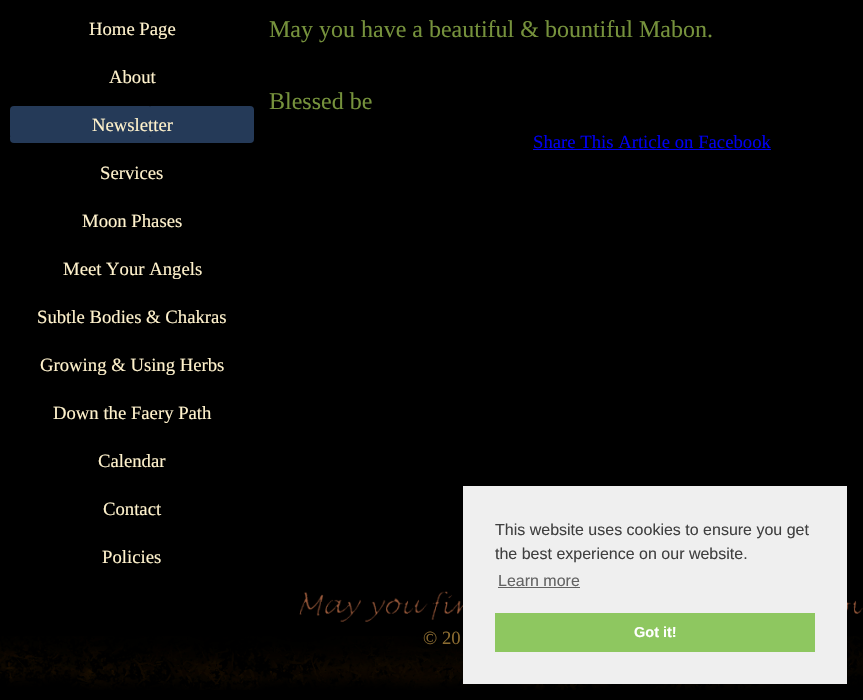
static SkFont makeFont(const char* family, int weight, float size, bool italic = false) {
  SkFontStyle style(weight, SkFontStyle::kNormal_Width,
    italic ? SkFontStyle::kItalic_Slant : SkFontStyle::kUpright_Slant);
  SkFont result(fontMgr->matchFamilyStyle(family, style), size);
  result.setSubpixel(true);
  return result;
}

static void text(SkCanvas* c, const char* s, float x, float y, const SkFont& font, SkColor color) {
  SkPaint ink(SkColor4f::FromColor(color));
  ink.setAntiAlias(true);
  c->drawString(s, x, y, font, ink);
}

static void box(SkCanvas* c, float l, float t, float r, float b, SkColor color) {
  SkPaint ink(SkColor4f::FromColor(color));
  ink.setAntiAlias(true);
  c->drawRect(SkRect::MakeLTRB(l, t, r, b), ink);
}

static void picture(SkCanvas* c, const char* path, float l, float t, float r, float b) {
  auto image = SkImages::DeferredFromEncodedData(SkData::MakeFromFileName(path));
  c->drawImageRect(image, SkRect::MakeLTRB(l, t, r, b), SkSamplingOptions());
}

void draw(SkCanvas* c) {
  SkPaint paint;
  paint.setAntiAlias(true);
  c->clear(0xff000000);
  SkFont face1 = makeFont("Liberation Serif", 400, 18.7f);
  text(c, "Home Page", 89, 35, face1, 0xfffff2cc);
  text(c, "About", 109, 83, face1, 0xfffff2cc);
  picture(c, "img_01.png", 10, 106, 254, 143);
  text(c, "Newsletter", 92, 131, face1, 0xfffff2cc);
  text(c, "Services", 100, 179, face1, 0xfffff2cc);
  text(c, "Moon Phases", 82, 227, face1, 0xfffff2cc);
  text(c, "Meet Your Angels", 63, 275, face1, 0xfffff2cc);
  text(c, "Subtle Bodies & Chakras", 37, 323, face1, 0xfffff2cc);
  text(c, "Growing & Using Herbs", 40, 371, face1, 0xfffff2cc);
  text(c, "Down the Faery Path", 53, 419, face1, 0xfffff2cc);
  text(c, "Calendar", 98, 467, face1, 0xfffff2cc);
  text(c, "Contact", 103, 515, face1, 0xfffff2cc);
  text(c, "Policies", 102, 563, face1, 0xfffff2cc);
  SkFont face2 = makeFont("Liberation Serif", 400, 24);
  text(c, "May you have a beautiful & bountiful Mabon.", 269, 37, face2, 0xff76923c);
  text(c, "Blessed be", 269, 109, face2, 0xff76923c);
  text(c, "Share This Article on Facebook", 533, 148, face1, 0xff0000ee);
  box(c, 533, 149, 771, 150, 0xff0000ee);
  picture(c, "img_02.png", 299, 591, 863, 623);
  picture(c, "img_03.png", 0, 636, 863, 690);
  text(c, "© 20", 423, 644, face1, 0xff8b6b30);
  box(c, 463, 486, 847, 684, 0xffefefef);
  SkFont face3 = makeFont("Liberation Sans", 400, 16);
  text(c, "This website uses cookies to ensure you get", 495, 535, face3, 0xff404040);
  text(c, "the best experience on our website.", 495, 559, face3, 0xff404040);
  text(c, "Learn more", 498, 586, face3, 0xff636363);
  box(c, 498, 587, 580, 588, 0xff636363);
  box(c, 495, 613, 815, 652, 0xff8ec760);
  SkFont face4 = makeFont("Liberation Sans", 700, 14.5f);
  text(c, "Got it!", 634, 637, face4, 0xffffffff);
}
